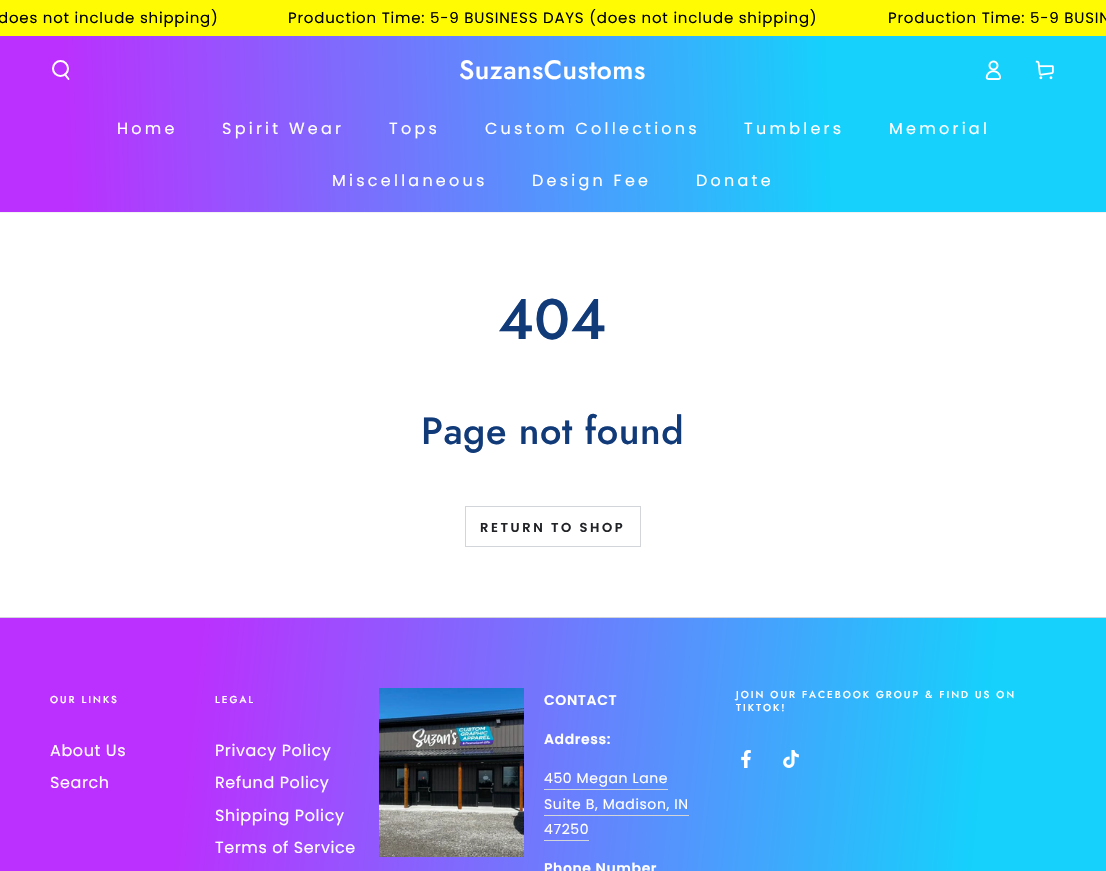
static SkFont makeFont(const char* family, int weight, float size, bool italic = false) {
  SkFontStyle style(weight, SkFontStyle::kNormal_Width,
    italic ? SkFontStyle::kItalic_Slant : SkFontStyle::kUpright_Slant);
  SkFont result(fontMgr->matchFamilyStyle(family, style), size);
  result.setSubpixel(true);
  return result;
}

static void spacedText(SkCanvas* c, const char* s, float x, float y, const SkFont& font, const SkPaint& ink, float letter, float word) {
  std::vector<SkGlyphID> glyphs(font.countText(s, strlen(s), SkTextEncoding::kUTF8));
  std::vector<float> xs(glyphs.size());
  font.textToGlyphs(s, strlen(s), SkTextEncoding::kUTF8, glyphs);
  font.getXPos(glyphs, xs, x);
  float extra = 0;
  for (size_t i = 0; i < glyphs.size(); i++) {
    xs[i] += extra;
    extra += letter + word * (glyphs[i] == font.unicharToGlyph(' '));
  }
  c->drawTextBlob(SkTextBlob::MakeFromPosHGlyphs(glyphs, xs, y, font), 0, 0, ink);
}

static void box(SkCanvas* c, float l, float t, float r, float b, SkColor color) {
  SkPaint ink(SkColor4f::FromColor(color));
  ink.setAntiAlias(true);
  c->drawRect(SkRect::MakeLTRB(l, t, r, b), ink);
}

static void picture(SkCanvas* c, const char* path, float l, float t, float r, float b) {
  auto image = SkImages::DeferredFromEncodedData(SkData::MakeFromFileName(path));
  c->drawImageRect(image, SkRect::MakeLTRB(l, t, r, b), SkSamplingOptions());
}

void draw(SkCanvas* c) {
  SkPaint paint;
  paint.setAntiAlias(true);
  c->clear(0xffffffff);
  box(c, 0, 0, 1106, 36, 0xfffffb03);
  SkFont face1 = makeFont("Poppins", 400, 15);
  paint.setColor(0xff000000);
  spacedText(c, "does not include shipping)", -2, 23, face1, paint, 0.78f, 0);
  spacedText(c, "Production Time: 5-9 BUSINESS DAYS (does not include shipping)", 288, 23, face1, paint, 0.78f, 0);
  spacedText(c, "Production Time: 5-9 BUSIN", 888, 23, face1, paint, 0.78f, 0);
  box(c, 0, 212, 1106, 213, 0xfff2f2f4);
  {
    const SkColor colors[] = {0xff15d1fc, 0xffbb30fe};
    const float stops[] = {0.25f, 0.94f};
    const SkPoint ends[] = {{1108, 105}, {-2.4f, 143}};
    paint.setShader(SkGradientShader::MakeLinear(ends, colors, stops, 2, SkTileMode::kClamp));
    paint.setAlpha(255);
  }
  c->drawRect(SkRect::MakeLTRB(0, 36, 1106, 212), paint);
  paint.setStyle(SkPaint::kStroke_Style);
  paint.setStrokeWidth(2);
  paint.setShader(nullptr);
  paint.setColor(0xffffffff);
  c->drawCircle(60.5f, 68.5f, 7.5f, paint);
  paint.setStrokeCap(SkPaint::kRound_Cap);
  c->drawPath(SkPathBuilder().moveTo(65, 74.5f).lineTo(68.5f, 79).detach(), paint);
  SkFont face2 = makeFont("Jost", 500, 26.5f);
  paint.setStyle(SkPaint::kFill_Style);
  spacedText(c, "SuzansCustoms", 459, 79, face2, paint, 0.5f, 0);
  picture(c, "img_01.png", 985, 60, 1001, 80);
  picture(c, "img_02.png", 1035, 60, 1054, 80);
  SkFont face3 = makeFont("Poppins", 400, 16);
  spacedText(c, "Home", 117, 134, face3, paint, 3.25f, 0);
  spacedText(c, "Spirit Wear", 222, 134, face3, paint, 3.25f, 0);
  spacedText(c, "Tops", 389, 134, face3, paint, 3.25f, 0);
  spacedText(c, "Custom Collections", 485, 134, face3, paint, 3.25f, 0);
  spacedText(c, "Tumblers", 744, 134, face3, paint, 3.25f, 0);
  spacedText(c, "Memorial", 889, 134, face3, paint, 3.25f, 0);
  spacedText(c, "Miscellaneous", 332, 186, face3, paint, 3.25f, 0);
  spacedText(c, "Design Fee", 532, 186, face3, paint, 3.25f, 0);
  spacedText(c, "Donate", 696, 186, face3, paint, 3.25f, 0);
  SkFont face4 = makeFont("Jost", 500, 57);
  paint.setColor(0xff113a79);
  spacedText(c, "404", 498, 339, face4, paint, 0.5f, 0);
  SkFont face5 = makeFont("Jost", 500, 38);
  spacedText(c, "Page not found", 421, 444, face5, paint, 0.5f, 0);
  paint.setStyle(SkPaint::kStroke_Style);
  paint.setStrokeWidth(1);
  paint.setStrokeCap(SkPaint::kButt_Cap);
  paint.setColor(0xffd2d5d9);
  c->drawRect(SkRect::MakeLTRB(465.5f, 506.5f, 640.5f, 546.5f), paint);
  SkFont face6 = makeFont("Poppins", 600, 13);
  paint.setStyle(SkPaint::kFill_Style);
  paint.setColor(0xff212326);
  spacedText(c, "RETURN TO SHOP", 480, 532, face6, paint, 2.6f, 0);
  {
    const SkColor colors[] = {0xff15d1fc, 0xffbb30fe};
    const float stops[] = {0.14f, 0.83f};
    const SkPoint ends[] = {{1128, 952}, {-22, 831}};
    paint.setShader(SkGradientShader::MakeLinear(ends, colors, stops, 2, SkTileMode::kClamp));
    paint.setAlpha(255);
  }
  c->drawRect(SkRect::MakeLTRB(0, 618, 1106, 871), paint);
  box(c, 0, 617, 1106, 618, 0xffd2d5d9);
  SkFont face7 = makeFont("Jost", 500, 10);
  paint.setShader(nullptr);
  paint.setColor(0xffffffff);
  spacedText(c, "OUR LINKS", 50, 703, face7, paint, 2, 0);
  spacedText(c, "About Us", 50, 756, face3, paint, 0.6f, 0);
  spacedText(c, "Search", 50, 788, face3, paint, 0.6f, 0);
  spacedText(c, "LEGAL", 215, 703, face7, paint, 2, 0);
  spacedText(c, "Privacy Policy", 215, 756, face3, paint, 0.6f, 0);
  spacedText(c, "Refund Policy", 215, 788, face3, paint, 0.6f, 0);
  spacedText(c, "Shipping Policy", 215, 821, face3, paint, 0.6f, 0);
  spacedText(c, "Terms of Service", 215, 853, face3, paint, 0.6f, 0);
  picture(c, "img_03.png", 379, 688, 524, 857);
  SkFont face8 = makeFont("Poppins", 600, 14);
  spacedText(c, "CONTACT", 544, 705, face8, paint, 0.6f, 0);
  spacedText(c, "Address:", 544, 744, face8, paint, 0.6f, 0);
  SkFont face9 = makeFont("Poppins", 400, 14);
  spacedText(c, "450 Megan Lane", 544, 783, face9, paint, 0.6f, 0);
  box(c, 544, 789, 668, 790, 0xffd2d5d9);
  spacedText(c, "Suite B, Madison, IN", 544, 809, face9, paint, 0.6f, 0);
  box(c, 544, 815, 689, 816, 0xffd2d5d9);
  spacedText(c, "47250", 544, 834, face9, paint, 0.6f, 0);
  box(c, 544, 840, 589, 841, 0xffd2d5d9);
  spacedText(c, "Phone Number", 544, 873, face8, paint, 0.6f, 0);
  spacedText(c, "JOIN OUR FACEBOOK GROUP & FIND US ON", 736, 698, face7, paint, 2, 0);
  spacedText(c, "TIKTOK!", 736, 711, face7, paint, 2, 0);
  picture(c, "img_04.png", 741, 750, 751, 768);
  picture(c, "img_05.png", 783, 750, 799, 768);
}
